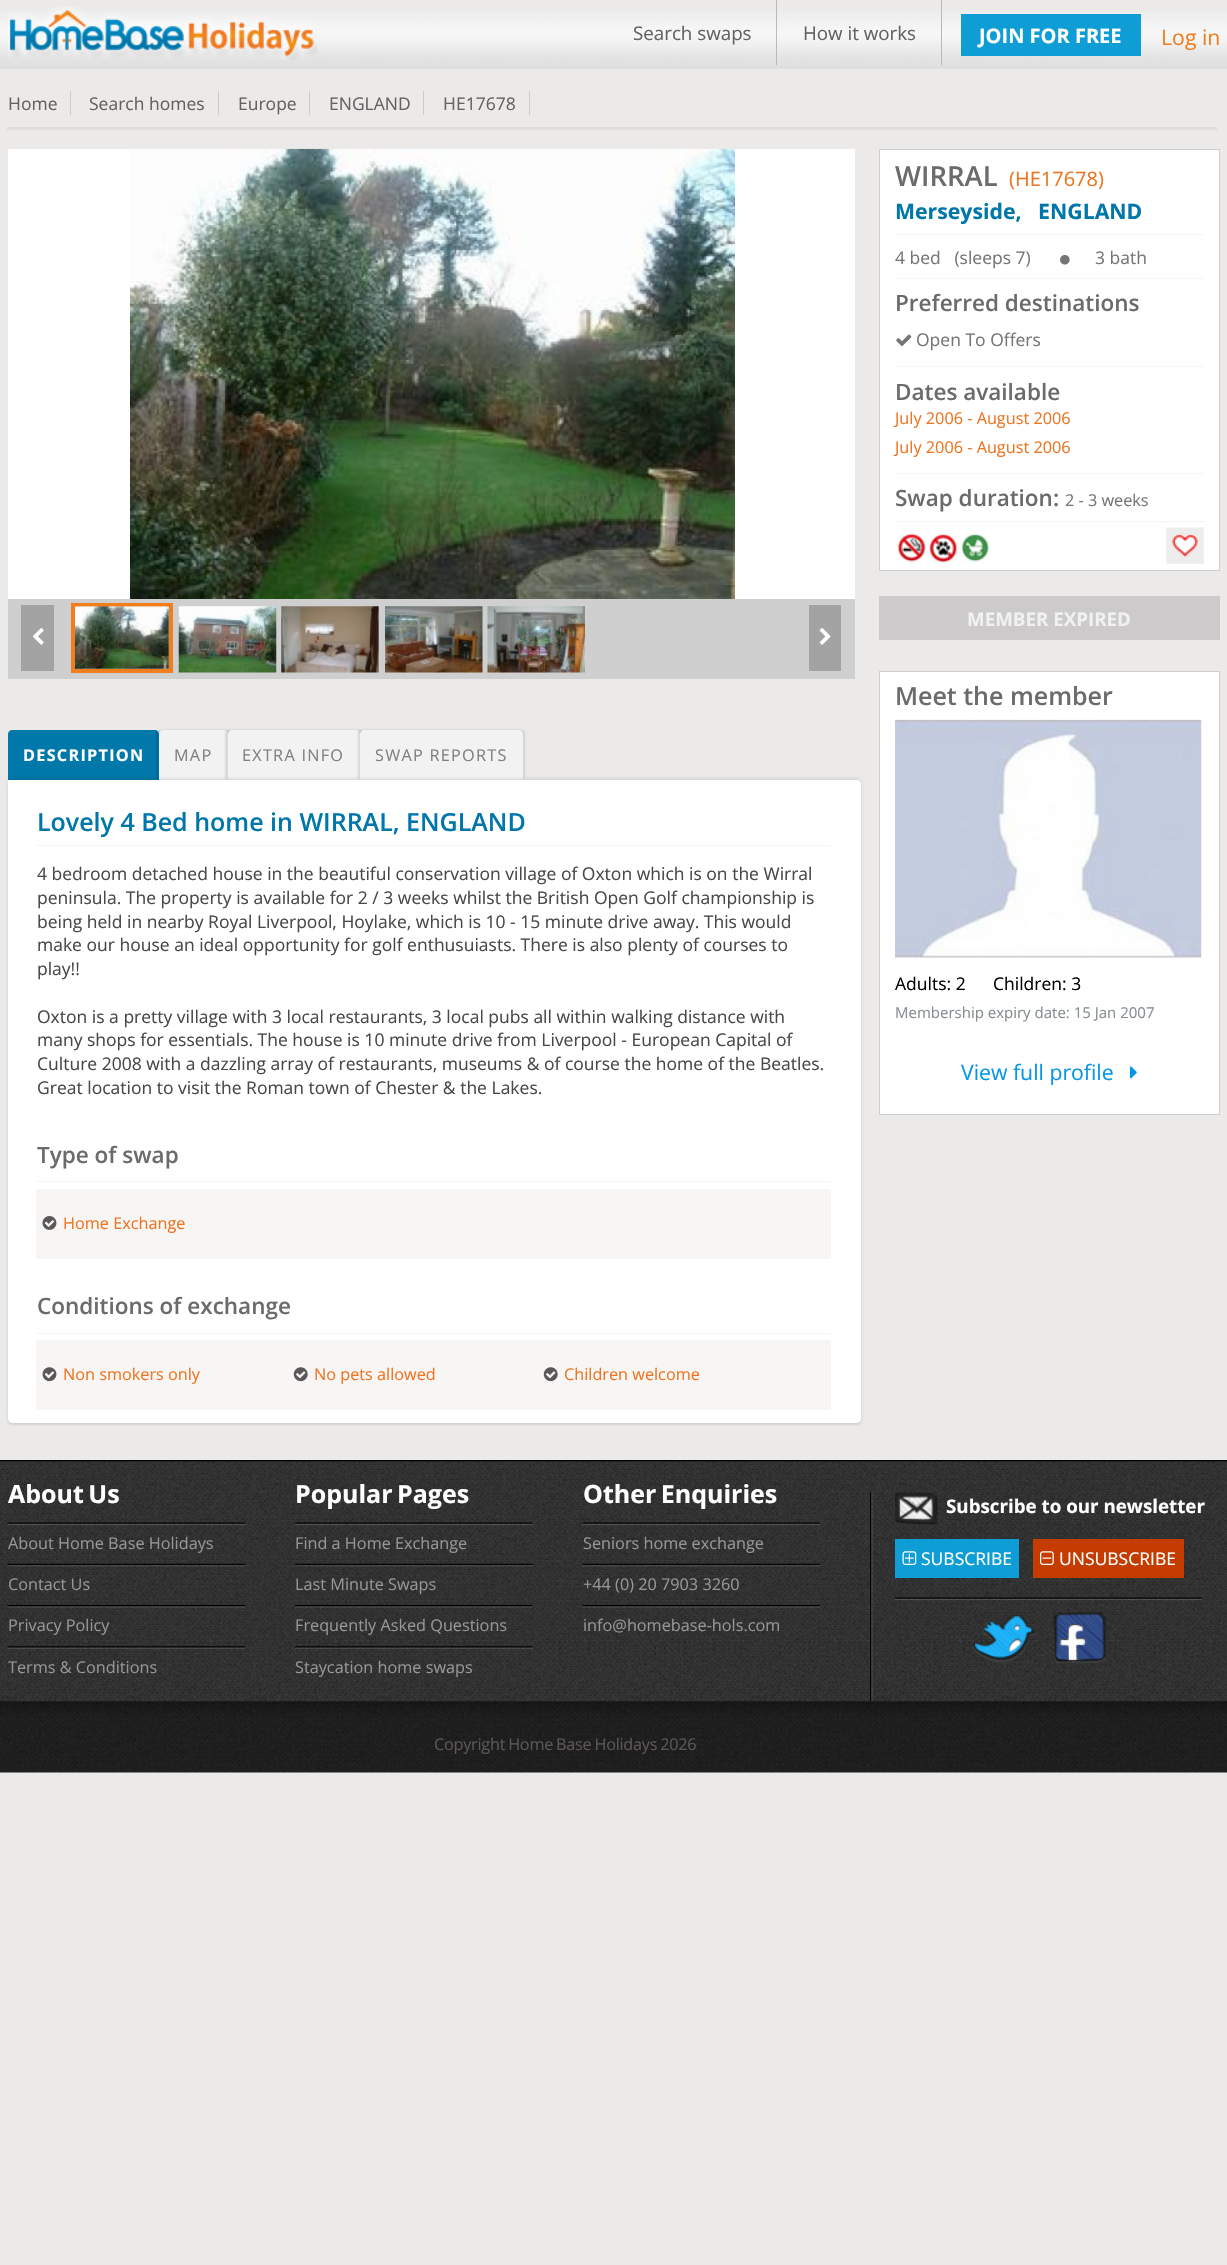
static SkFont makeFont(const char* family, int weight, float size, bool italic = false) {
  SkFontStyle style(weight, SkFontStyle::kNormal_Width,
    italic ? SkFontStyle::kItalic_Slant : SkFontStyle::kUpright_Slant);
  SkFont result(fontMgr->matchFamilyStyle(family, style), size);
  result.setSubpixel(true);
  return result;
}

static void text(SkCanvas* c, const char* s, float x, float y, const SkFont& font, SkColor color) {
  SkPaint ink(SkColor4f::FromColor(color));
  ink.setAntiAlias(true);
  c->drawString(s, x, y, font, ink);
}

static void spacedText(SkCanvas* c, const char* s, float x, float y, const SkFont& font, const SkPaint& ink, float letter, float word) {
  std::vector<SkGlyphID> glyphs(font.countText(s, strlen(s), SkTextEncoding::kUTF8));
  std::vector<float> xs(glyphs.size());
  font.textToGlyphs(s, strlen(s), SkTextEncoding::kUTF8, glyphs);
  font.getXPos(glyphs, xs, x);
  float extra = 0;
  for (size_t i = 0; i < glyphs.size(); i++) {
    xs[i] += extra;
    extra += letter + word * (glyphs[i] == font.unicharToGlyph(' '));
  }
  c->drawTextBlob(SkTextBlob::MakeFromPosHGlyphs(glyphs, xs, y, font), 0, 0, ink);
}

static void box(SkCanvas* c, float l, float t, float r, float b, SkColor color) {
  SkPaint ink(SkColor4f::FromColor(color));
  ink.setAntiAlias(true);
  c->drawRect(SkRect::MakeLTRB(l, t, r, b), ink);
}

static void picture(SkCanvas* c, const char* path, float l, float t, float r, float b) {
  auto image = SkImages::DeferredFromEncodedData(SkData::MakeFromFileName(path));
  c->drawImageRect(image, SkRect::MakeLTRB(l, t, r, b), SkSamplingOptions());
}

void draw(SkCanvas* c) {
  SkPaint paint;
  paint.setAntiAlias(true);
  c->clear(0xffebeae8);
  picture(c, "img_01.png", 0, 11, 1227, 69);
  picture(c, "img_02.png", 8, 6, 319, 60);
  box(c, 776, 0, 777, 65, 0xffb9b9ba);
  SkFont face1 = makeFont("Open Sans", 400, 18.75f);
  text(c, "Search swaps", 633, 40, face1, 0xff636161);
  box(c, 941, 0, 942, 65, 0xffb9b9ba);
  text(c, "How it works", 803, 40, face1, 0xff636161);
  box(c, 961, 14, 1141, 56, 0xff0e9ed5);
  SkFont face2 = makeFont("Open Sans", 700, 20);
  text(c, "JOIN FOR FREE", 979, 43, face2, 0xffffffff);
  SkFont face3 = makeFont("Open Sans", 400, 21.25f);
  text(c, "Log in", 1161, 45, face3, 0xfff07d1e);
  SkFont face4 = makeFont("Open Sans", 400, 17.5f);
  text(c, "Home", 8, 110, face4, 0xff636161);
  box(c, 70, 91, 71, 115, 0xffcccccc);
  text(c, "Search homes", 89, 110, face4, 0xff636161);
  box(c, 218, 91, 219, 115, 0xffcccccc);
  text(c, "Europe", 238, 110, face4, 0xff636161);
  box(c, 309, 91, 310, 115, 0xffcccccc);
  text(c, "ENGLAND", 329, 110, face4, 0xff636161);
  box(c, 423, 91, 424, 115, 0xffcccccc);
  text(c, "HE17678", 443, 110, face4, 0xff636161);
  box(c, 529, 91, 530, 115, 0xffcccccc);
  box(c, 7, 127, 1217, 130, 0xffdddddc);
  box(c, 8, 149, 855, 599, 0xffffffff);
  picture(c, "img_03.png", 130, 148, 735, 599);
  box(c, 8, 599, 855, 679, 0xffcfcfcf);
  box(c, 21, 605, 54, 671, 0xffa3a3a3);
  picture(c, "img_04.png", 32, 628, 44, 645);
  paint.setStyle(SkPaint::kStroke_Style);
  paint.setStrokeWidth(4);
  paint.setColor(0xfff07d1e);
  c->drawRect(SkRect::MakeLTRB(73, 605, 171, 671), paint);
  picture(c, "img_05.png", 75, 606, 169, 669);
  picture(c, "img_06.png", 178, 606, 277, 673);
  picture(c, "img_07.png", 281, 606, 379, 673);
  picture(c, "img_08.png", 385, 606, 483, 673);
  picture(c, "img_09.png", 487, 606, 585, 673);
  box(c, 809, 605, 841, 671, 0xffa3a3a3);
  picture(c, "img_10.png", 819, 628, 831, 645);
  paint.setStyle(SkPaint::kFill_Style);
  paint.setColor(0xff0078aa);
  c->drawPath(SkPathBuilder().moveTo(12, 730).lineTo(155, 730).cubicTo(157, 730, 159, 732, 159, 734).lineTo(159, 780).lineTo(8, 780).lineTo(8, 734).cubicTo(8, 732, 10, 730, 12, 730).close().detach(), paint);
  SkFont face5 = makeFont("Open Sans", 700, 16.25f);
  paint.setColor(0xffffffff);
  spacedText(c, "DESCRIPTION", 23, 761, face5, paint, 1.25f, 0);
  paint.setColor(0x1a000000);
  paint.setMaskFilter(SkMaskFilter::MakeBlur(kNormal_SkBlurStyle, 1));
  c->drawRoundRect(SkRect::MakeLTRB(156, 730, 225, 780), 4, 4, paint);
  paint.setMaskFilter(nullptr);
  paint.setMaskFilter(SkMaskFilter::MakeBlur(kNormal_SkBlurStyle, 1));
  c->drawRoundRect(SkRect::MakeLTRB(161, 730, 230, 780), 4, 4, paint);
  paint.setMaskFilter(nullptr);
  paint.setColor(0xfff3f2f2);
  c->drawPath(SkPathBuilder().moveTo(163, 730).lineTo(224, 730).cubicTo(226, 730, 228, 732, 228, 734).lineTo(228, 780).lineTo(159, 780).lineTo(159, 734).cubicTo(159, 732, 161, 730, 163, 730).close().detach(), paint);
  SkFont face6 = makeFont("Open Sans", 400, 16.25f);
  paint.setColor(0xff818080);
  spacedText(c, "MAP", 174, 761, face6, paint, 1.25f, 0);
  paint.setColor(0x1a000000);
  paint.setMaskFilter(SkMaskFilter::MakeBlur(kNormal_SkBlurStyle, 1));
  c->drawRoundRect(SkRect::MakeLTRB(225, 730, 358, 780), 4, 4, paint);
  paint.setMaskFilter(nullptr);
  paint.setMaskFilter(SkMaskFilter::MakeBlur(kNormal_SkBlurStyle, 1));
  c->drawRoundRect(SkRect::MakeLTRB(230, 730, 363, 780), 4, 4, paint);
  paint.setMaskFilter(nullptr);
  paint.setColor(0xfff3f2f2);
  c->drawPath(SkPathBuilder().moveTo(232, 730).lineTo(356, 730).cubicTo(358, 730, 360, 732, 360, 734).lineTo(360, 780).lineTo(228, 780).lineTo(228, 734).cubicTo(228, 732, 230, 730, 232, 730).close().detach(), paint);
  paint.setColor(0xff818080);
  spacedText(c, "EXTRA INFO", 242, 761, face6, paint, 1.25f, 0);
  paint.setColor(0x1a000000);
  paint.setMaskFilter(SkMaskFilter::MakeBlur(kNormal_SkBlurStyle, 1));
  c->drawRoundRect(SkRect::MakeLTRB(358, 730, 520, 780), 4, 4, paint);
  paint.setMaskFilter(nullptr);
  paint.setMaskFilter(SkMaskFilter::MakeBlur(kNormal_SkBlurStyle, 1));
  c->drawRoundRect(SkRect::MakeLTRB(363, 730, 525, 780), 4, 4, paint);
  paint.setMaskFilter(nullptr);
  paint.setColor(0xfff3f2f2);
  c->drawPath(SkPathBuilder().moveTo(364, 730).lineTo(519, 730).cubicTo(521, 730, 523, 732, 523, 734).lineTo(523, 780).lineTo(360, 780).lineTo(360, 734).cubicTo(360, 732, 362, 730, 364, 730).close().detach(), paint);
  paint.setColor(0xff818080);
  spacedText(c, "SWAP REPORTS", 375, 761, face6, paint, 1.25f, 0);
  paint.setColor(0x1a000000);
  paint.setMaskFilter(SkMaskFilter::MakeBlur(kNormal_SkBlurStyle, 1));
  c->drawRoundRect(SkRect::MakeLTRB(8, 783, 861, 1425), 4, 4, paint);
  paint.setMaskFilter(nullptr);
  paint.setColor(0x33000000);
  paint.setMaskFilter(SkMaskFilter::MakeBlur(kNormal_SkBlurStyle, 2));
  c->drawRoundRect(SkRect::MakeLTRB(10, 780, 859, 1418), 1, 1, paint);
  paint.setMaskFilter(nullptr);
  paint.setColor(0xffffffff);
  c->drawPath(SkPathBuilder().moveTo(8, 780).lineTo(857, 780).cubicTo(859, 780, 861, 782, 861, 784).lineTo(861, 1419).cubicTo(861, 1421, 859, 1423, 857, 1423).lineTo(12, 1423).cubicTo(10, 1423, 8, 1421, 8, 1419).close().detach(), paint);
  SkFont face7 = makeFont("Open Sans", 600, 25);
  text(c, "Lovely 4 Bed home in WIRRAL, ENGLAND", 37, 831, face7, 0xff0077aa);
  box(c, 36, 845, 831, 846, 0xfff5f5f5);
  text(c, "4 bedroom detached house in the beautiful conservation village of Oxton which is on the Wirral", 37, 880, face4, 0xff494848);
  text(c, "peninsula. The property is available for 2 / 3 weeks whilst the British Open Golf championship is", 37, 904, face4, 0xff494848);
  text(c, "being held in nearby Royal Liverpool, Hoylake, which is 10 - 15 minute drive away. This would", 37, 928, face4, 0xff494848);
  text(c, "make our house an ideal opportunity for golf enthusuiasts. There is also plenty of courses to", 37, 951, face4, 0xff494848);
  text(c, "play!!", 37, 975, face4, 0xff494848);
  text(c, "Oxton is a pretty village with 3 local restaurants, 3 local pubs all within walking distance with", 37, 1023, face4, 0xff494848);
  text(c, "many shops for essentials. The house is 10 minute drive from Liverpool - European Capital of", 37, 1046, face4, 0xff494848);
  text(c, "Culture 2008 with a dazzling array of restaurants, museums & of course the home of the Beatles.", 37, 1070, face4, 0xff494848);
  text(c, "Great location to visit the Roman town of Chester & the Lakes.", 37, 1094, face4, 0xff494848);
  SkFont face8 = makeFont("Open Sans", 600, 22.5f);
  text(c, "Type of swap", 37, 1163, face8, 0xff696b6c);
  box(c, 36, 1181, 831, 1182, 0xfff5f5f5);
  box(c, 36, 1189, 831, 1259, 0xfff8f6f5);
  picture(c, "img_11.png", 42, 1216, 57, 1230);
  text(c, "Home Exchange", 63, 1229, face6, 0xffee7420);
  text(c, "Conditions of exchange", 37, 1314, face8, 0xff696b6c);
  box(c, 36, 1333, 831, 1334, 0xfff5f5f5);
  box(c, 36, 1340, 831, 1410, 0xfff8f6f5);
  picture(c, "img_12.png", 42, 1367, 57, 1382);
  text(c, "Non smokers only", 63, 1380, face6, 0xffee7420);
  picture(c, "img_13.png", 293, 1367, 308, 1382);
  text(c, "No pets allowed", 314, 1380, face6, 0xffee7420);
  picture(c, "img_13.png", 543, 1367, 558, 1382);
  text(c, "Children welcome", 564, 1380, face6, 0xffee7420);
  c->drawRect(SkRect::MakeLTRB(879.5f, 149.5f, 1219.5f, 570.5f), paint);
  paint.setStyle(SkPaint::kStroke_Style);
  paint.setStrokeWidth(1);
  paint.setColor(0xffcfcfcf);
  c->drawRect(SkRect::MakeLTRB(879.5f, 149.5f, 1219.5f, 570.5f), paint);
  SkFont face9 = makeFont("Open Sans", 600, 27.5f);
  text(c, "WIRRAL", 895, 186, face9, 0xff696b6c);
  SkFont face10 = makeFont("Open Sans", 400, 20);
  text(c, "(HE17678)", 1009, 186, face10, 0xffee7420);
  SkFont face11 = makeFont("Open Sans", 700, 21.25f);
  text(c, "Merseyside,   ENGLAND", 895, 219, face11, 0xff0077aa);
  box(c, 895, 234, 1204, 235, 0xfff5f5f5);
  text(c, "4 bed   (sleeps 7)", 895, 264, face4, 0xff757575);
  picture(c, "img_14.png", 1060, 254, 1070, 265);
  text(c, "3 bath", 1095, 264, face4, 0xff757575);
  box(c, 895, 278, 1204, 279, 0xfff5f5f5);
  text(c, "Preferred destinations", 895, 311, face8, 0xff696b6c);
  picture(c, "img_15.png", 896, 334, 912, 347);
  text(c, "Open To Offers", 916, 346, face4, 0xff757575);
  box(c, 895, 366, 1204, 367, 0xfff5f5f5);
  text(c, "Dates available", 895, 400, face8, 0xff696b6c);
  text(c, "July 2006 - August 2006", 895, 424, face6, 0xffee7420);
  text(c, "July 2006 - August 2006", 895, 453, face6, 0xffee7420);
  box(c, 895, 473, 1204, 474, 0xfff5f5f5);
  text(c, "Swap duration:", 895, 506, face8, 0xff696b6c);
  text(c, "2 - 3 weeks", 1065, 506, face6, 0xff757575);
  box(c, 895, 521, 1204, 522, 0xfff5f5f5);
  picture(c, "img_16.png", 897, 533, 926, 563);
  picture(c, "img_17.png", 929, 533, 958, 563);
  picture(c, "img_18.png", 961, 533, 989, 562);
  picture(c, "img_19.png", 1166, 527, 1204, 564);
  box(c, 879, 596, 1220, 640, 0xffcccaca);
  SkFont face12 = makeFont("Open Sans", 700, 18.75f);
  text(c, "MEMBER EXPIRED", 967, 626, face12, 0xfff1f1f1);
  paint.setStyle(SkPaint::kFill_Style);
  paint.setColor(0xffffffff);
  c->drawRect(SkRect::MakeLTRB(879.5f, 671.5f, 1219.5f, 1114.5f), paint);
  paint.setStyle(SkPaint::kStroke_Style);
  paint.setColor(0xffcfcfcf);
  c->drawRect(SkRect::MakeLTRB(879.5f, 671.5f, 1219.5f, 1114.5f), paint);
  text(c, "Meet the member", 895, 705, face7, 0xff696b6c);
  picture(c, "img_20.png", 895, 719, 1202, 959);
  text(c, "Adults: 2", 895, 990, face4, 0xff000000);
  text(c, "Children: 3", 993, 990, face4, 0xff000000);
  SkFont face13 = makeFont("Open Sans", 400, 15);
  text(c, "Membership expiry date: 15 Jan 2007", 895, 1018, face13, 0xff868d90);
  text(c, "View full profile", 961, 1080, face3, 0xff0696e7);
  picture(c, "img_21.png", 1130, 1066, 1137, 1079);
  picture(c, "img_22.png", 0, 1460, 1227, 1773);
  SkFont face14 = makeFont("Open Sans", 700, 25);
  paint.setStyle(SkPaint::kFill_Style);
  paint.setColor(0xffffffff);
  spacedText(c, "About Us", 8, 1503, face14, paint, 0, -2);
  picture(c, "img_23.png", 7, 1522, 245, 1525);
  text(c, "About Home Base Holidays", 8, 1549, face6, 0xff989595);
  picture(c, "img_24.png", 7, 1563, 245, 1567);
  text(c, "Contact Us", 8, 1590, face6, 0xff989595);
  picture(c, "img_25.png", 7, 1605, 245, 1608);
  text(c, "Privacy Policy", 8, 1631, face6, 0xff989595);
  picture(c, "img_26.png", 7, 1646, 245, 1649);
  text(c, "Terms & Conditions", 8, 1673, face6, 0xff989595);
  spacedText(c, "Popular Pages", 295, 1503, face14, paint, 0, -2);
  picture(c, "img_27.png", 295, 1522, 533, 1525);
  text(c, "Find a Home Exchange", 295, 1549, face6, 0xff989595);
  picture(c, "img_28.png", 295, 1563, 533, 1567);
  text(c, "Last Minute Swaps", 295, 1590, face6, 0xff989595);
  picture(c, "img_29.png", 295, 1605, 533, 1608);
  text(c, "Frequently Asked Questions", 295, 1631, face6, 0xff989595);
  picture(c, "img_30.png", 295, 1646, 533, 1649);
  text(c, "Staycation home swaps", 295, 1673, face6, 0xff989595);
  spacedText(c, "Other Enquiries", 583, 1503, face14, paint, 0, -2);
  picture(c, "img_31.png", 582, 1522, 820, 1525);
  text(c, "Seniors home exchange", 583, 1549, face6, 0xff989595);
  picture(c, "img_32.png", 582, 1563, 820, 1567);
  text(c, "+44 (0) 20 7903 3260", 583, 1590, face6, 0xff989595);
  picture(c, "img_33.png", 582, 1605, 820, 1608);
  text(c, "info@homebase-hols.com", 583, 1631, face6, 0xff989595);
  picture(c, "img_34.png", 870, 1492, 873, 1702);
  picture(c, "img_35.png", 895, 1492, 938, 1524);
  text(c, "Subscribe to our newsletter", 946, 1513, face12, 0xffffffff);
  box(c, 895, 1539, 1019, 1578, 0xff0e9ed5);
  picture(c, "img_36.png", 902, 1551, 917, 1565);
  text(c, "SUBSCRIBE", 921, 1565, face4, 0xffffffff);
  box(c, 1033, 1539, 1184, 1578, 0xffc53c00);
  picture(c, "img_37.png", 1040, 1551, 1054, 1565);
  text(c, "UNSUBSCRIBE", 1059, 1565, face4, 0xffffffff);
  picture(c, "img_38.png", 895, 1597, 1203, 1600);
  picture(c, "img_39.png", 972, 1612, 1035, 1663);
  picture(c, "img_40.png", 1052, 1612, 1108, 1663);
  paint.setColor(0xff5c5656);
  spacedText(c, "Copyright Home Base Holidays 2026", 434, 1750, face6, paint, -0.25f, -1);
}
